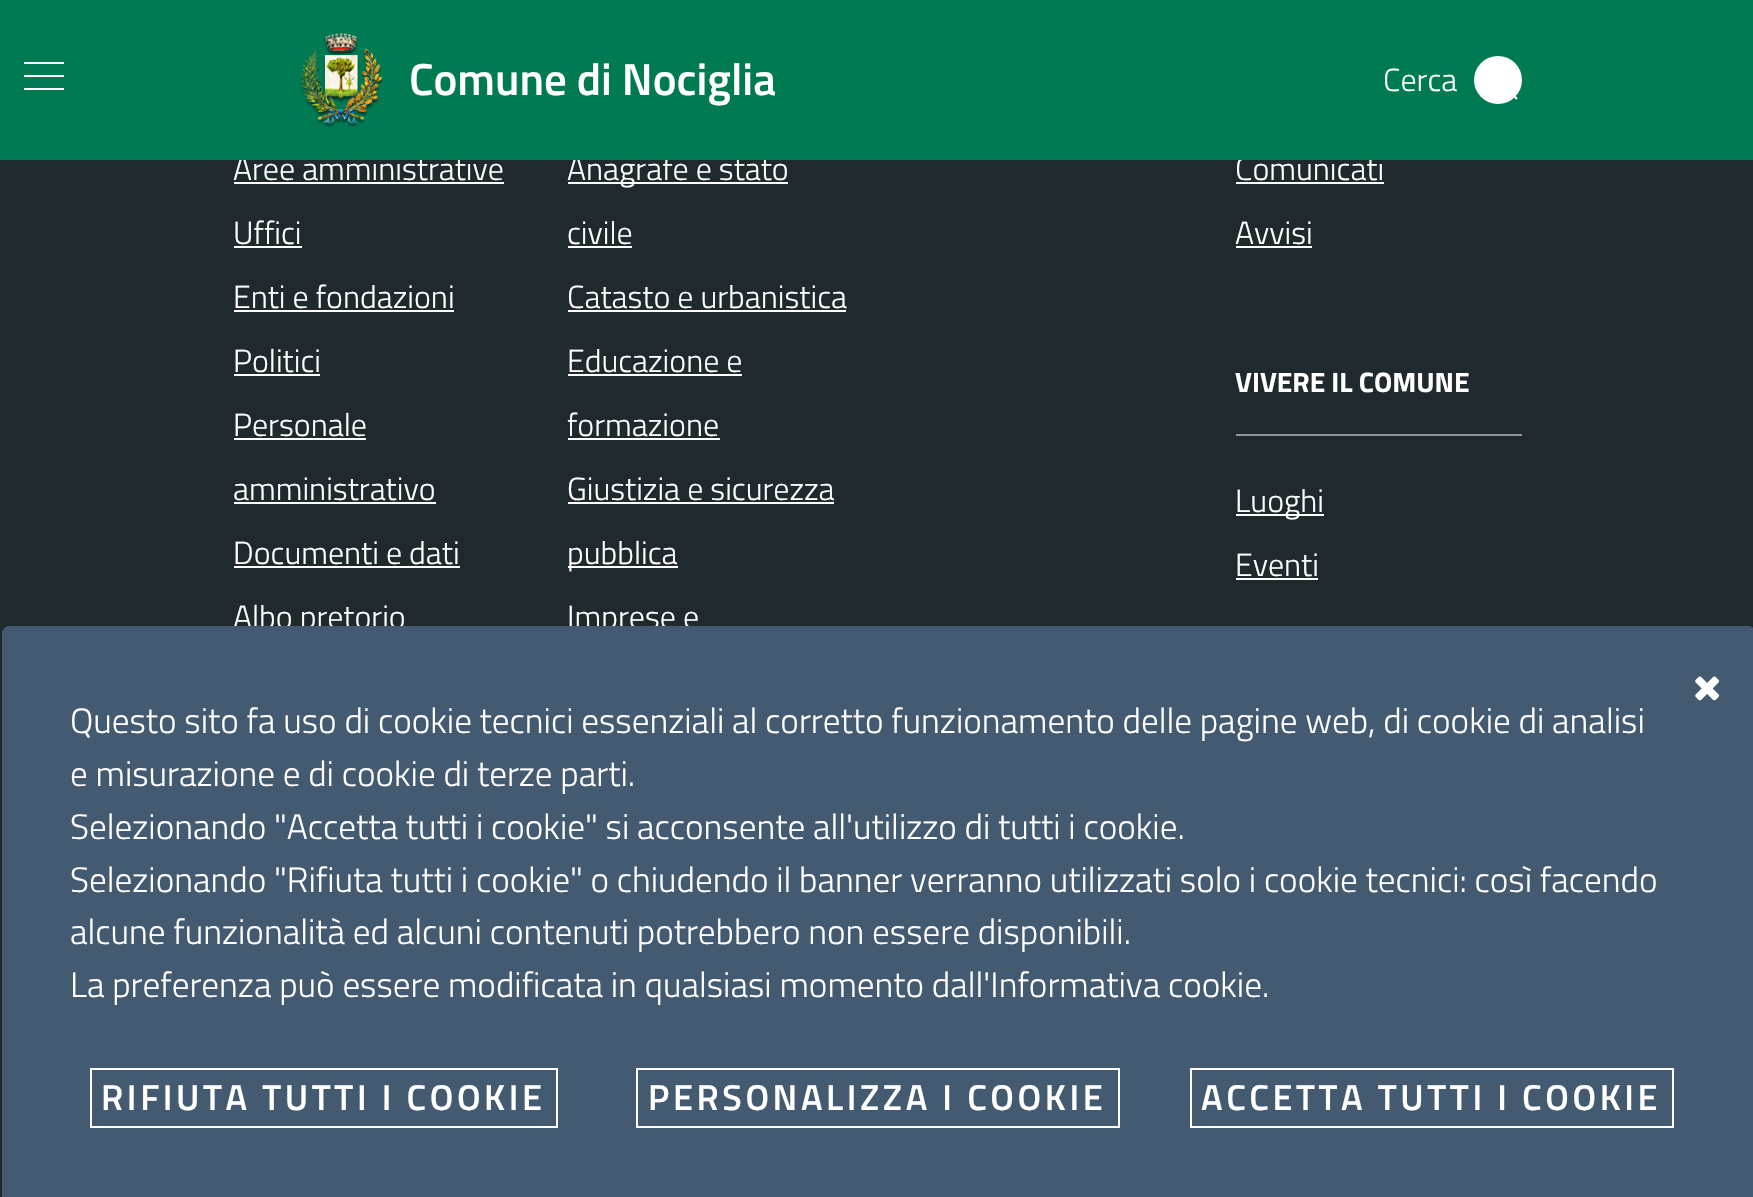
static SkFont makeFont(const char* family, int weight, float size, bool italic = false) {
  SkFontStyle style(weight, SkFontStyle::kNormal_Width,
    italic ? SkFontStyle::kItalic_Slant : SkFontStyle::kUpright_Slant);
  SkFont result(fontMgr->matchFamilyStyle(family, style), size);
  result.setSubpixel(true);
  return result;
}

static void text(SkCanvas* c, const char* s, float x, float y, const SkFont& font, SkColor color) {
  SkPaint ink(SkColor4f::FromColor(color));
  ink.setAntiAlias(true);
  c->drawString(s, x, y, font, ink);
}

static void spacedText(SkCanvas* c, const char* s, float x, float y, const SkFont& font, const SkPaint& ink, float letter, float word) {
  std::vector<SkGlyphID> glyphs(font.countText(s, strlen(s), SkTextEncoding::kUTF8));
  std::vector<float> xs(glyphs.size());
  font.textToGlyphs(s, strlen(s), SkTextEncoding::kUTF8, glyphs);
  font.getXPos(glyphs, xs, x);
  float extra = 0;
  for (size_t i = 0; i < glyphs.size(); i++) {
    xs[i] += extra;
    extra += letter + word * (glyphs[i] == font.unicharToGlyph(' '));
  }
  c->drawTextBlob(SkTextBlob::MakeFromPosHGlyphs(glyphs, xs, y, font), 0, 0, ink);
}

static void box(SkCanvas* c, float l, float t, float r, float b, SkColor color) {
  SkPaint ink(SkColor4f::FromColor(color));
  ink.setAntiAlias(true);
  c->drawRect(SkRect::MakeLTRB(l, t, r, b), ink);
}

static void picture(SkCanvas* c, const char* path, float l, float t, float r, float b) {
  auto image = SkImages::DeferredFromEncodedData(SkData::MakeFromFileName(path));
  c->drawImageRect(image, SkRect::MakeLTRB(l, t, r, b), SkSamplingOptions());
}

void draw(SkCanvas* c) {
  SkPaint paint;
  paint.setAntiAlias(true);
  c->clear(0xff202a2e);
  SkFont face1 = makeFont("Titillium Web", 300, 32);
  text(c, "Aree amministrative", 233, 180, face1, 0xffffffff);
  box(c, 568, 182, 788, 184, 0xffffffff);
  text(c, "Anagrafe e stato", 567, 180, face1, 0xffffffff);
  text(c, "Comunicati", 1235, 180, face1, 0xffffffff);
  box(c, 0, 0, 1753, 160, 0xff007a52);
  picture(c, "img_01.png", 24, 62, 64, 90);
  picture(c, "img_02.png", 300, 33, 383, 128);
  SkFont face2 = makeFont("Titillium Web", 600, 45);
  text(c, "Comune di Nociglia", 409, 95, face2, 0xffffffff);
  text(c, "Cerca", 1383, 91, face1, 0xffffffff);
  paint.setColor(0xffffffff);
  c->drawCircle(1498, 80, 24, paint);
  picture(c, "img_03.png", 1514, 96, 1518, 100);
  box(c, 234, 182, 504, 184, 0xffffffff);
  text(c, "Uffici", 233, 244, face1, 0xffffffff);
  box(c, 234, 246, 302, 248, 0xffffffff);
  text(c, "Enti e fondazioni", 233, 308, face1, 0xffffffff);
  box(c, 234, 310, 454, 312, 0xffffffff);
  text(c, "Politici", 233, 372, face1, 0xffffffff);
  box(c, 234, 374, 320, 376, 0xffffffff);
  text(c, "Personale", 233, 436, face1, 0xffffffff);
  box(c, 234, 438, 366, 440, 0xffffffff);
  text(c, "amministrativo", 233, 500, face1, 0xffffffff);
  box(c, 234, 502, 436, 504, 0xffffffff);
  text(c, "Documenti e dati", 233, 564, face1, 0xffffffff);
  box(c, 234, 566, 460, 568, 0xffffffff);
  text(c, "Albo pretorio", 233, 628, face1, 0xffffffff);
  text(c, "civile", 567, 244, face1, 0xffffffff);
  box(c, 568, 246, 632, 248, 0xffffffff);
  text(c, "Catasto e urbanistica", 567, 308, face1, 0xffffffff);
  box(c, 568, 310, 846, 312, 0xffffffff);
  text(c, "Educazione e", 567, 372, face1, 0xffffffff);
  box(c, 568, 374, 742, 376, 0xffffffff);
  text(c, "formazione", 567, 436, face1, 0xffffffff);
  box(c, 568, 438, 720, 440, 0xffffffff);
  text(c, "Giustizia e sicurezza", 567, 500, face1, 0xffffffff);
  box(c, 568, 502, 834, 504, 0xffffffff);
  box(c, 568, 566, 678, 568, 0xffffffff);
  text(c, "pubblica", 567, 564, face1, 0xffffffff);
  text(c, "Imprese e", 567, 628, face1, 0xffffffff);
  box(c, 1236, 182, 1384, 184, 0xffffffff);
  text(c, "Avvisi", 1235, 244, face1, 0xffffffff);
  box(c, 1236, 246, 1312, 248, 0xffffffff);
  box(c, 1236, 434, 1522, 436, 0xff909597);
  SkFont face3 = makeFont("Titillium Web", 700, 28);
  text(c, "VIVERE IL COMUNE", 1235, 392, face3, 0xffffffff);
  box(c, 1236, 514, 1324, 516, 0xffffffff);
  text(c, "Luoghi", 1235, 512, face1, 0xffffffff);
  text(c, "Eventi", 1235, 576, face1, 0xffffffff);
  box(c, 1236, 578, 1318, 580, 0xffffffff);
  paint.setColor(0xff435a70);
  c->drawPath(SkPathBuilder().moveTo(10, 626).lineTo(1748, 626).cubicTo(1752.5f, 626, 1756, 629.5f, 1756, 634).lineTo(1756, 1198).lineTo(2, 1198).lineTo(2, 634).cubicTo(2, 629.5f, 5.5f, 626, 10, 626).close().detach(), paint);
  picture(c, "img_04.png", 1695, 676, 1720, 701);
  SkFont face4 = makeFont("Titillium Web", 300, 35.2f);
  text(c, "Questo sito fa uso di cookie tecnici essenziali al corretto funzionamento delle pagine web, di cookie di analisi", 70, 733, face4, 0xffffffff);
  text(c, "e misurazione e di cookie di terze parti.", 70, 786, face4, 0xffffffff);
  text(c, "Selezionando \"Accetta tutti i cookie\" si acconsente all'utilizzo di tutti i cookie.", 70, 839, face4, 0xffffffff);
  text(c, "Selezionando \"Rifiuta tutti i cookie\" o chiudendo il banner verranno utilizzati solo i cookie tecnici: così facendo", 70, 892, face4, 0xffffffff);
  text(c, "alcune funzionalità ed alcuni contenuti potrebbero non essere disponibili.", 70, 944, face4, 0xffffffff);
  text(c, "La preferenza può essere modificata in qualsiasi momento dall'Informativa cookie.", 70, 997, face4, 0xffffffff);
  paint.setStyle(SkPaint::kStroke_Style);
  paint.setStrokeWidth(2);
  paint.setColor(0xffffffff);
  c->drawRect(SkRect::MakeLTRB(91, 1069, 557, 1127), paint);
  SkFont face5 = makeFont("Titillium Web", 600, 36);
  paint.setStyle(SkPaint::kFill_Style);
  spacedText(c, "RIFIUTA TUTTI I COOKIE", 101, 1110, face5, paint, 3.6f, 0);
  paint.setStyle(SkPaint::kStroke_Style);
  c->drawRect(SkRect::MakeLTRB(637, 1069, 1119, 1127), paint);
  paint.setStyle(SkPaint::kFill_Style);
  spacedText(c, "PERSONALIZZA I COOKIE", 648, 1110, face5, paint, 3.6f, 0);
  paint.setStyle(SkPaint::kStroke_Style);
  c->drawRect(SkRect::MakeLTRB(1191, 1069, 1673, 1127), paint);
  paint.setStyle(SkPaint::kFill_Style);
  spacedText(c, "ACCETTA TUTTI I COOKIE", 1201, 1110, face5, paint, 3.6f, 0);
}
